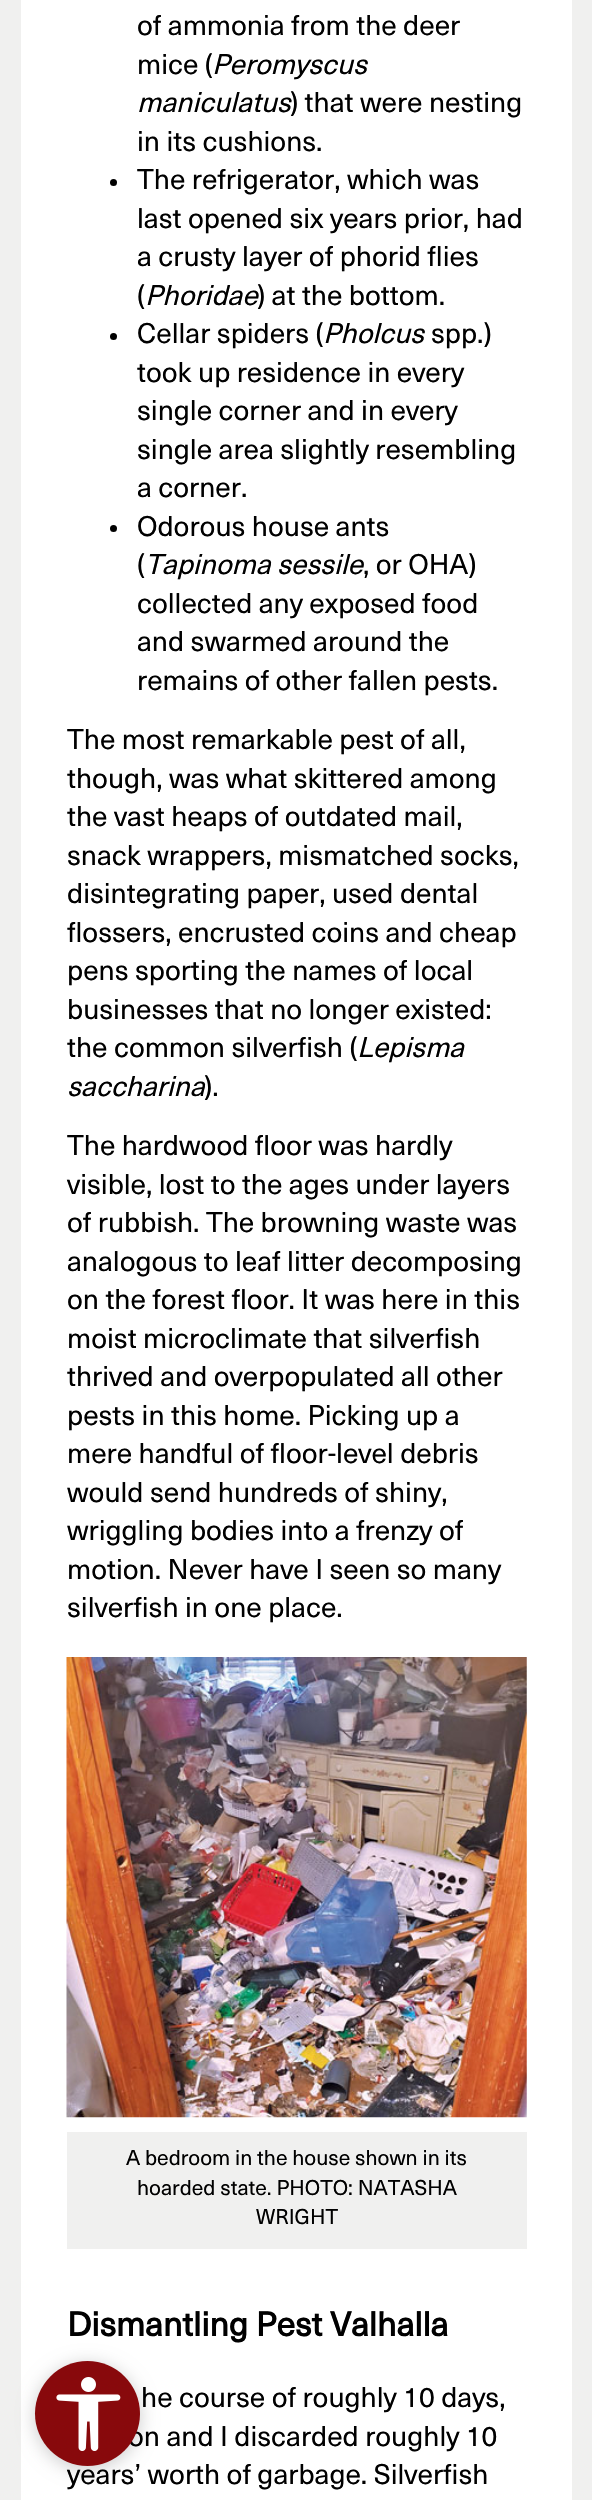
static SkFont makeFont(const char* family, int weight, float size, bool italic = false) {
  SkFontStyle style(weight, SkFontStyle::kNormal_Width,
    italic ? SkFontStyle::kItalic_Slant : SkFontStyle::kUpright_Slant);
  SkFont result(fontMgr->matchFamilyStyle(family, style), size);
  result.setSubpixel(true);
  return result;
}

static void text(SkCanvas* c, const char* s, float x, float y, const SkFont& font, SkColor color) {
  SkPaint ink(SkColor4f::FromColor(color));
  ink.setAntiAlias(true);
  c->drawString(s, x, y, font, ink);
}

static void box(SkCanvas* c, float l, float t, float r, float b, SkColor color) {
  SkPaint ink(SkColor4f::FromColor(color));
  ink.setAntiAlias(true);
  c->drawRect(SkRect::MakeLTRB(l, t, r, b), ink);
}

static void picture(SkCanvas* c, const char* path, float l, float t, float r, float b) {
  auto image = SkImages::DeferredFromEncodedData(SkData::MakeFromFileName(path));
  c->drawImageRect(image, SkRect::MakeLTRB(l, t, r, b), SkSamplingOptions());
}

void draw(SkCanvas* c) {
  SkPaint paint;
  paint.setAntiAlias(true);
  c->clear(0xfff0f0ef);
  box(c, 21, 0, 572, 2500, 0xffffffff);
  SkFont face1 = makeFont("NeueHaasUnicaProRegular", 400, 28);
  text(c, "of ammonia from the deer", 137, 35, face1, 0xff000000);
  text(c, "mice (", 137, 74, face1, 0xff000000);
  SkFont face2 = makeFont("NeueHaasUnicaProRegular", 400, 28, true);
  text(c, "Peromyscus", 212, 74, face2, 0xff000000);
  text(c, "maniculatus", 137, 112, face2, 0xff000000);
  text(c, ") that were nesting", 290, 112, face1, 0xff000000);
  text(c, "in its cushions.", 137, 151, face1, 0xff000000);
  paint.setColor(0xff000000);
  c->drawCircle(113.5f, 182.5f, 3.5f, paint);
  text(c, "The refrigerator, which was", 137, 189, face1, 0xff000000);
  text(c, "last opened six years prior, had", 137, 228, face1, 0xff000000);
  text(c, "a crusty layer of phorid flies", 137, 266, face1, 0xff000000);
  text(c, "(", 137, 305, face1, 0xff000000);
  text(c, "Phoridae", 145, 305, face2, 0xff000000);
  text(c, ") at the bottom.", 257, 305, face1, 0xff000000);
  c->drawCircle(113.5f, 336.5f, 3.5f, paint);
  text(c, "Cellar spiders (", 137, 343, face1, 0xff000000);
  text(c, "Pholcus", 323, 343, face2, 0xff000000);
  text(c, "spp.)", 431, 343, face1, 0xff000000);
  text(c, "took up residence in every", 137, 382, face1, 0xff000000);
  text(c, "single corner and in every", 137, 420, face1, 0xff000000);
  text(c, "single area slightly resembling", 137, 459, face1, 0xff000000);
  text(c, "a corner.", 137, 497, face1, 0xff000000);
  c->drawCircle(113.5f, 528.5f, 3.5f, paint);
  text(c, "Odorous house ants", 137, 536, face1, 0xff000000);
  text(c, "(", 137, 574, face1, 0xff000000);
  text(c, "Tapinoma sessile", 145, 574, face2, 0xff000000);
  text(c, ", or OHA)", 363, 574, face1, 0xff000000);
  text(c, "collected any exposed food", 137, 613, face1, 0xff000000);
  text(c, "and swarmed around the", 137, 651, face1, 0xff000000);
  text(c, "remains of other fallen pests.", 137, 690, face1, 0xff000000);
  text(c, "The most remarkable pest of all,", 67, 749, face1, 0xff000000);
  text(c, "though, was what skittered among", 67, 788, face1, 0xff000000);
  text(c, "the vast heaps of outdated mail,", 67, 826, face1, 0xff000000);
  text(c, "snack wrappers, mismatched socks,", 67, 865, face1, 0xff000000);
  text(c, "disintegrating paper, used dental", 67, 903, face1, 0xff000000);
  text(c, "flossers, encrusted coins and cheap", 67, 942, face1, 0xff000000);
  text(c, "pens sporting the names of local", 67, 980, face1, 0xff000000);
  text(c, "businesses that no longer existed:", 67, 1019, face1, 0xff000000);
  text(c, "the common silverfish (", 67, 1057, face1, 0xff000000);
  text(c, "Lepisma", 357, 1057, face2, 0xff000000);
  text(c, "saccharina", 67, 1096, face2, 0xff000000);
  text(c, ").", 204, 1096, face1, 0xff000000);
  text(c, "The hardwood floor was hardly", 67, 1155, face1, 0xff000000);
  text(c, "visible, lost to the ages under layers", 67, 1194, face1, 0xff000000);
  text(c, "of rubbish. The browning waste was", 67, 1232, face1, 0xff000000);
  text(c, "analogous to leaf litter decomposing", 67, 1271, face1, 0xff000000);
  text(c, "on the forest floor. It was here in this", 67, 1309, face1, 0xff000000);
  text(c, "moist microclimate that silverfish", 67, 1348, face1, 0xff000000);
  text(c, "thrived and overpopulated all other", 67, 1386, face1, 0xff000000);
  text(c, "pests in this home. Picking up a", 67, 1425, face1, 0xff000000);
  text(c, "mere handful of floor-level debris", 67, 1463, face1, 0xff000000);
  text(c, "would send hundreds of shiny,", 67, 1502, face1, 0xff000000);
  text(c, "wriggling bodies into a frenzy of", 67, 1540, face1, 0xff000000);
  text(c, "motion. Never have I seen so many", 67, 1579, face1, 0xff000000);
  text(c, "silverfish in one place.", 67, 1617, face1, 0xff000000);
  picture(c, "img_01.png", 66, 1657, 527, 2118);
  box(c, 67, 2132, 527, 2249, 0xfff0f0ef);
  SkFont face3 = makeFont("NeueHaasUnicaProRegular", 400, 21);
  text(c, "A bedroom in the house shown in its", 126, 2165, face3, 0xff000000);
  text(c, "hoarded state. PHOTO: NATASHA", 137, 2195, face3, 0xff000000);
  text(c, "WRIGHT", 256, 2224, face3, 0xff000000);
  SkFont face4 = makeFont("NeueHaasUnicaProRegular", 700, 33.6f);
  text(c, "Dismantling Pest Valhalla", 67, 2336, face4, 0xff000000);
  text(c, "he course of roughly 10 days,", 141, 2407, face1, 0xff000000);
  text(c, "on and I discarded roughly 10", 128, 2446, face1, 0xff000000);
  text(c, "years’ worth of garbage. Silverfish", 67, 2484, face1, 0xff000000);
  paint.setColor(0x33000000);
  paint.setMaskFilter(SkMaskFilter::MakeBlur(kNormal_SkBlurStyle, 9));
  c->drawRoundRect(SkRect::MakeLTRB(35, 2364, 140, 2469), 52.5f, 52.5f, paint);
  paint.setMaskFilter(nullptr);
  paint.setColor(0xff88090c);
  c->drawCircle(87.5f, 2413.5f, 52.5f, paint);
  picture(c, "img_02.png", 56, 2377, 121, 2451);
}
